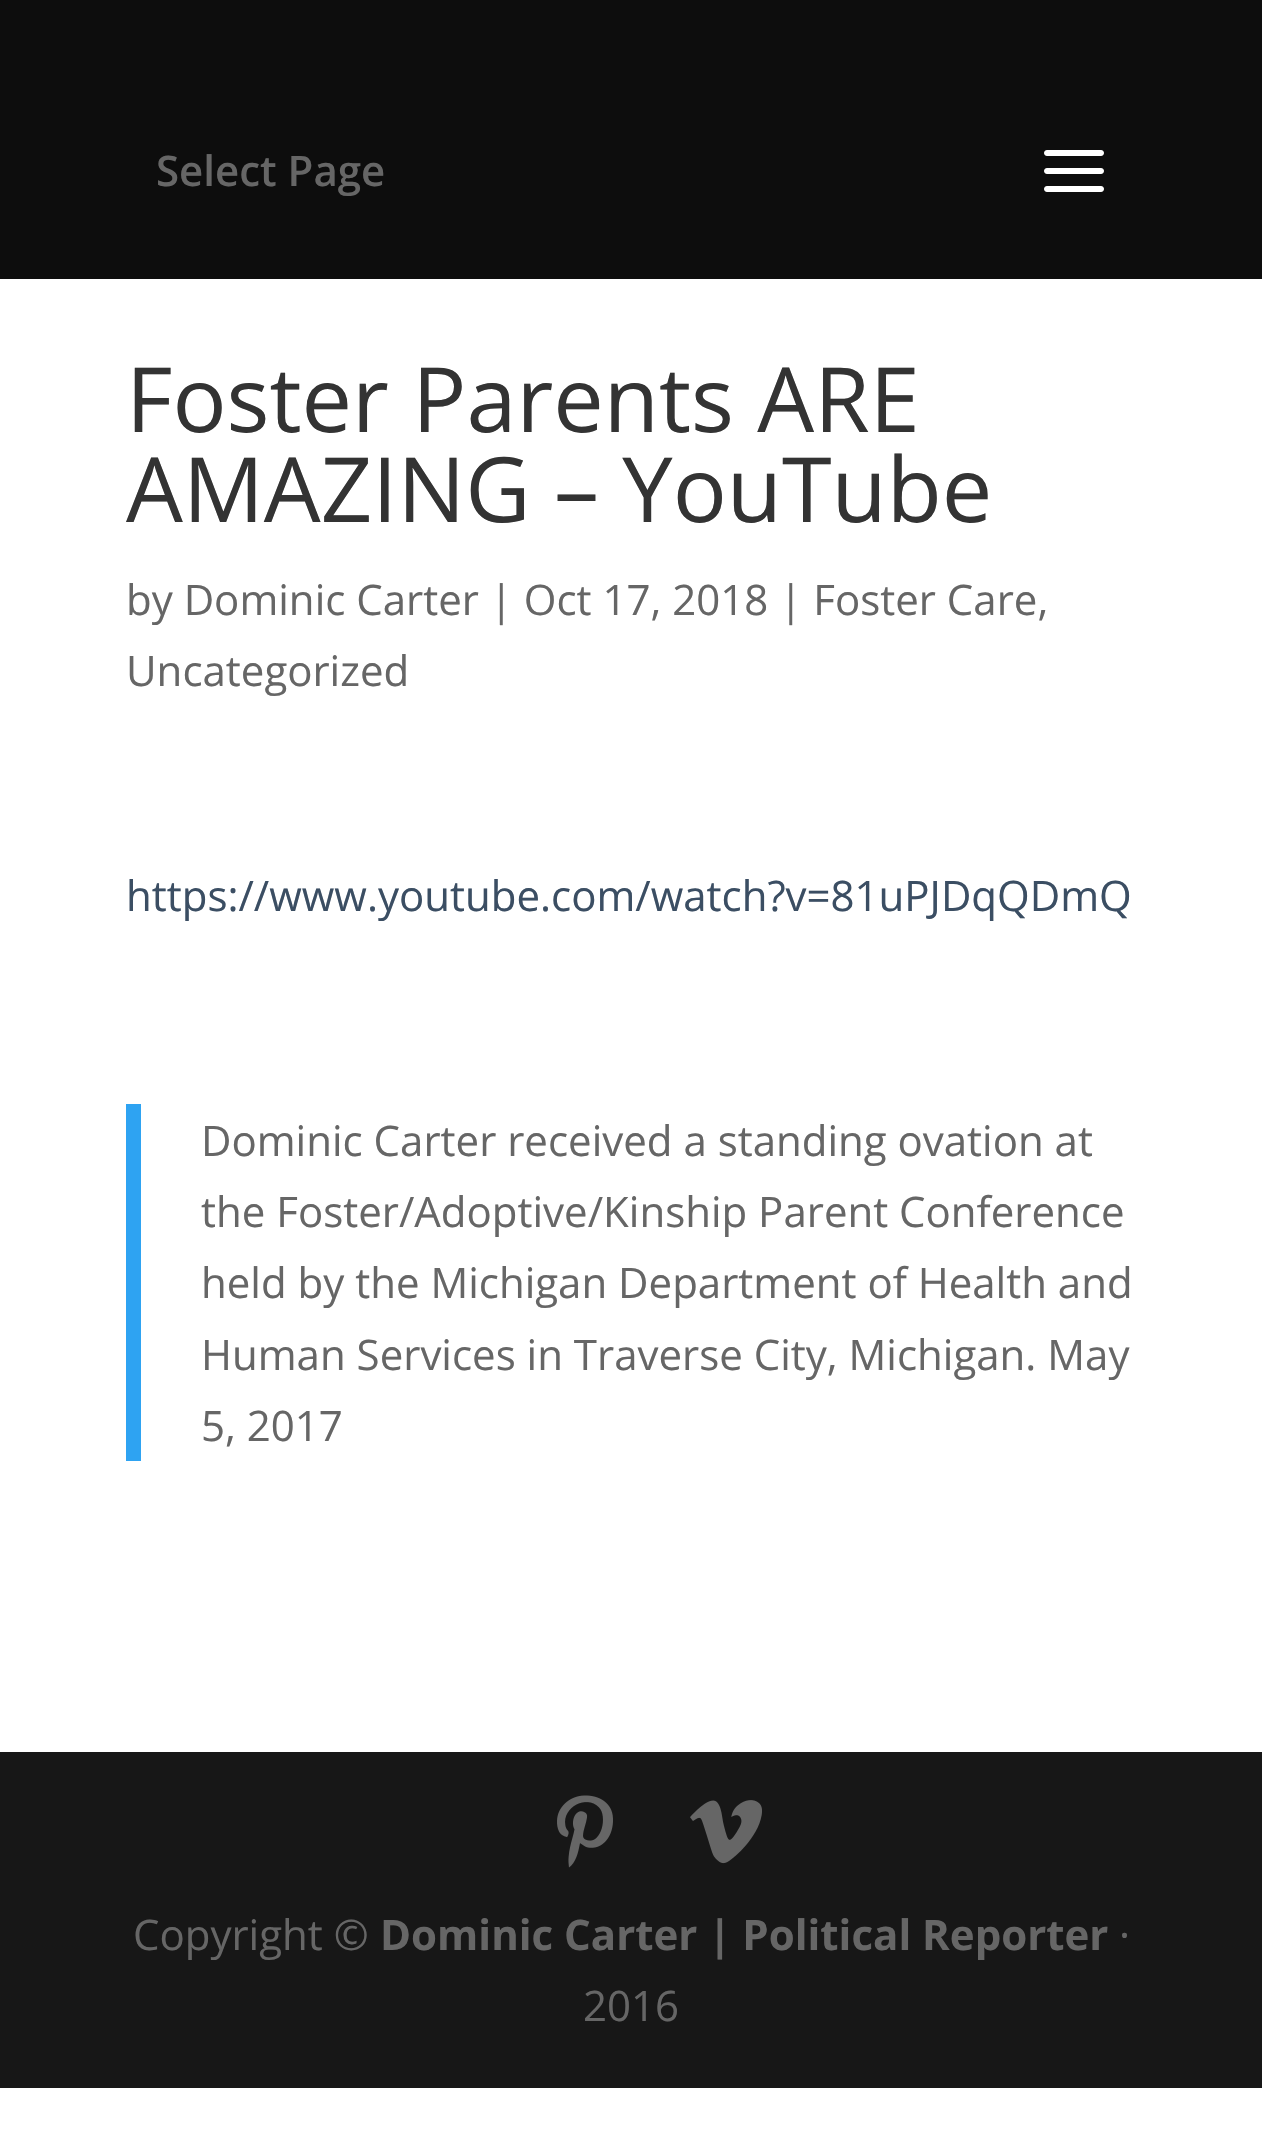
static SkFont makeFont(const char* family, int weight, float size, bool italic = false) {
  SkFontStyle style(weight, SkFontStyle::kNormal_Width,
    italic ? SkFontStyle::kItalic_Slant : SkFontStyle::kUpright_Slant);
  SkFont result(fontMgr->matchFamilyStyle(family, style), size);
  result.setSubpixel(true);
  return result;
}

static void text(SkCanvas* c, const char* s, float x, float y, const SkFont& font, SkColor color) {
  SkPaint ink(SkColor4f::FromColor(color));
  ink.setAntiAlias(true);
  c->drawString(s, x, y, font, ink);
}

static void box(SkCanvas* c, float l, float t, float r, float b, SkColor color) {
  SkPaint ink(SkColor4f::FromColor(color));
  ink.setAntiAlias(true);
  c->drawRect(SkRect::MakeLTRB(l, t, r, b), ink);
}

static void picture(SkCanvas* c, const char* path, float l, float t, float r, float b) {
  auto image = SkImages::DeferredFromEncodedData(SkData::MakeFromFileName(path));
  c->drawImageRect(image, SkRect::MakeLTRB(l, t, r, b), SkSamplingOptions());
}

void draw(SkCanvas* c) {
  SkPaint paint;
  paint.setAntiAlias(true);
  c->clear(0xffffffff);
  box(c, 0, 0, 1262, 279, 0xff0d0d0d);
  SkFont face1 = makeFont("Open Sans", 600, 42);
  text(c, "Select Page", 156, 186, face1, 0xff666666);
  picture(c, "img_01.png", 1044, 150, 1104, 192);
  SkFont face2 = makeFont("Open Sans", 400, 90);
  text(c, "Foster Parents ARE", 126, 432, face2, 0xff333333);
  text(c, "AMAZING – YouTube", 126, 522, face2, 0xff333333);
  SkFont face3 = makeFont("Open Sans", 400, 42);
  text(c, "by Dominic Carter | Oct 17, 2018 | Foster Care,", 126, 615, face3, 0xff666666);
  text(c, "Uncategorized", 126, 686, face3, 0xff666666);
  text(c, "https://www.youtube.com/watch?v=81uPJDqQDmQ", 126, 911, face3, 0xff3b4e63);
  box(c, 126, 1104, 141, 1461, 0xff2ea3f2);
  text(c, "Dominic Carter received a standing ovation at", 201, 1156, face3, 0xff666666);
  text(c, "the Foster/Adoptive/Kinship Parent Conference", 201, 1227, face3, 0xff666666);
  text(c, "held by the Michigan Department of Health and", 201, 1298, face3, 0xff666666);
  text(c, "Human Services in Traverse City, Michigan. May", 201, 1370, face3, 0xff666666);
  text(c, "5, 2017", 201, 1441, face3, 0xff666666);
  box(c, 0, 1752, 1262, 2088, 0xff171717);
  picture(c, "img_02.png", 557, 1795, 613, 1868);
  picture(c, "img_03.png", 690, 1800, 762, 1864);
  text(c, "Copyright ©", 133, 1950, face3, 0xff666666);
  SkFont face4 = makeFont("Open Sans", 700, 42);
  text(c, "Dominic Carter | Political Reporter", 380, 1950, face4, 0xff666666);
  text(c, "·", 1119, 1950, face3, 0xff666666);
  text(c, "2016", 583, 2021, face3, 0xff666666);
}
